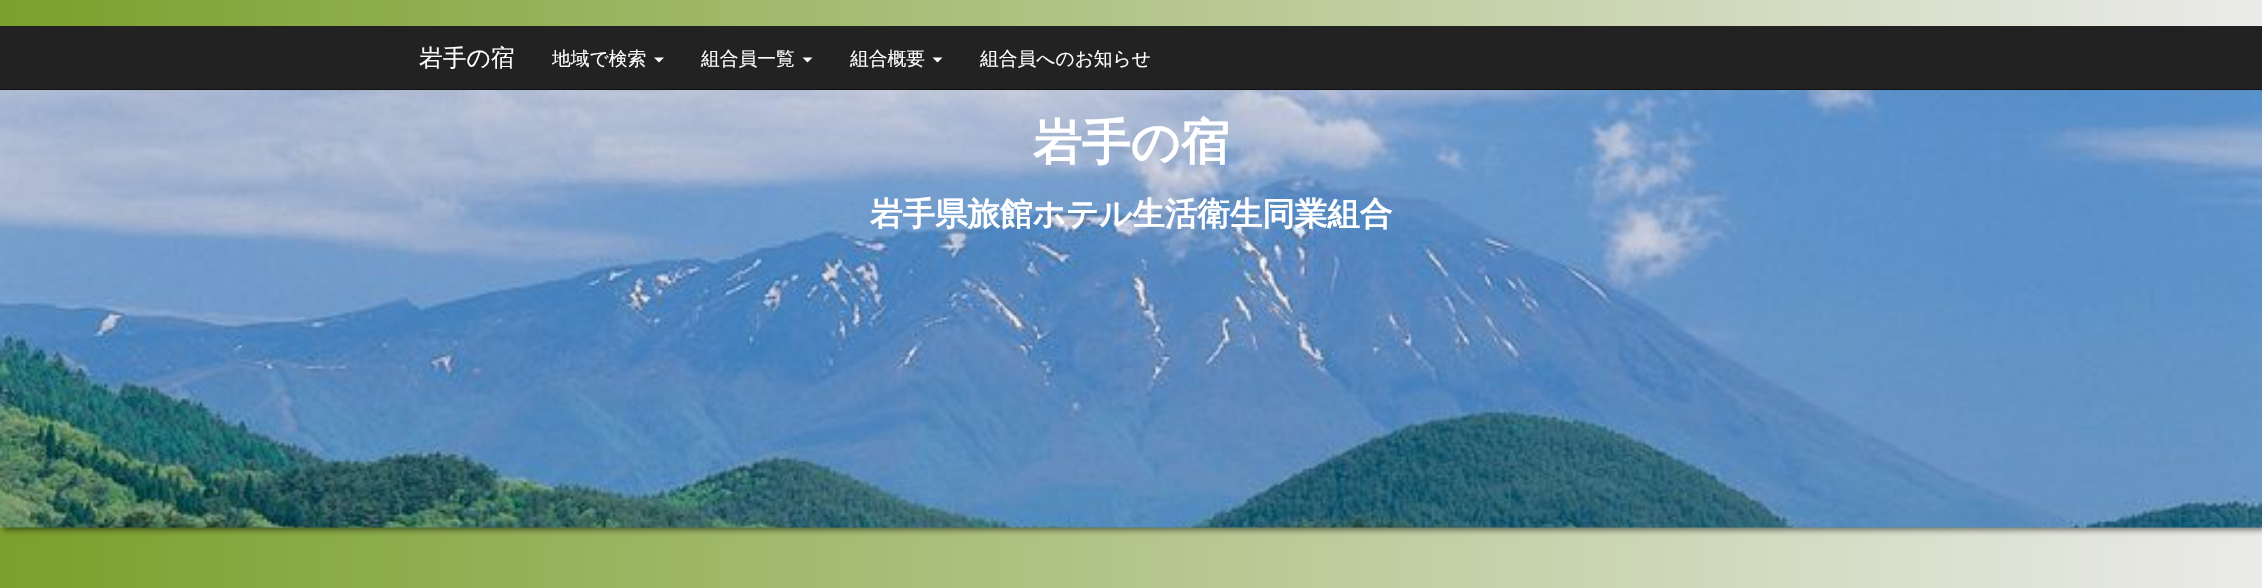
static SkFont makeFont(const char* family, int weight, float size, bool italic = false) {
  SkFontStyle style(weight, SkFontStyle::kNormal_Width,
    italic ? SkFontStyle::kItalic_Slant : SkFontStyle::kUpright_Slant);
  SkFont result(fontMgr->matchFamilyStyle(family, style), size);
  result.setSubpixel(true);
  return result;
}

static void text(SkCanvas* c, const char* s, float x, float y, const SkFont& font, SkColor color) {
  SkPaint ink(SkColor4f::FromColor(color));
  ink.setAntiAlias(true);
  c->drawString(s, x, y, font, ink);
}

static void box(SkCanvas* c, float l, float t, float r, float b, SkColor color) {
  SkPaint ink(SkColor4f::FromColor(color));
  ink.setAntiAlias(true);
  c->drawRect(SkRect::MakeLTRB(l, t, r, b), ink);
}

static void picture(SkCanvas* c, const char* path, float l, float t, float r, float b) {
  auto image = SkImages::DeferredFromEncodedData(SkData::MakeFromFileName(path));
  c->drawImageRect(image, SkRect::MakeLTRB(l, t, r, b), SkSamplingOptions());
}

void draw(SkCanvas* c) {
  SkPaint paint;
  paint.setAntiAlias(true);
  c->clear(0xffffffff);
  {
    const SkColor colors[] = {0xffebebea, 0xff7ba02c};
    const float stops[] = {0, 1};
    const SkPoint ends[] = {{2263, 294}, {0, 294}};
    paint.setShader(SkGradientShader::MakeLinear(ends, colors, stops, 2, SkTileMode::kClamp));
    paint.setAlpha(255);
  }
  c->drawRect(SkRect::MakeLTRB(0, 0, 2262, 588), paint);
  paint.setShader(nullptr);
  paint.setColor(0x80000000);
  paint.setMaskFilter(SkMaskFilter::MakeBlur(kNormal_SkBlurStyle, 3));
  c->drawRect(SkRect::MakeLTRB(3, 93, 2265, 530), paint);
  paint.setMaskFilter(nullptr);
  box(c, 0, 26, 2262, 89, 0xff222222);
  box(c, 0, 89, 2262, 90, 0xff121212);
  SkFont face1 = makeFont("WenQuanYi Zen Hei", 500, 23.75f);
  text(c, "岩手の宿", 419, 66, face1, 0xffffffff);
  SkFont face2 = makeFont("WenQuanYi Zen Hei", 500, 18.75f);
  text(c, "地域で検索", 552, 65, face2, 0xffffffff);
  paint.setColor(0xffffffff);
  c->drawPath(SkPathBuilder().moveTo(654, 57.5f).lineTo(664, 57.5f).lineTo(659, 62.5f).close().detach(), paint);
  text(c, "組合員一覧", 701, 65, face2, 0xffffffff);
  c->drawPath(SkPathBuilder().moveTo(802.5f, 57.5f).lineTo(812.5f, 57.5f).lineTo(807.5f, 62.5f).close().detach(), paint);
  text(c, "組合概要", 850, 65, face2, 0xffffffff);
  c->drawPath(SkPathBuilder().moveTo(932.5f, 57.5f).lineTo(942.5f, 57.5f).lineTo(937.5f, 62.5f).close().detach(), paint);
  text(c, "組合員へのお知らせ", 980, 65, face2, 0xffffffff);
  picture(c, "img_01.png", 0, 90, 2262, 528);
  SkFont face3 = makeFont("WenQuanYi Zen Hei", 700, 48.75f);
  text(c, "岩手の宿", 1033, 159, face3, 0xffffffff);
  SkFont face4 = makeFont("WenQuanYi Zen Hei", 700, 32.5f);
  text(c, "岩手県旅館ホテル生活衛生同業組合", 870, 225, face4, 0xffffffff);
}
